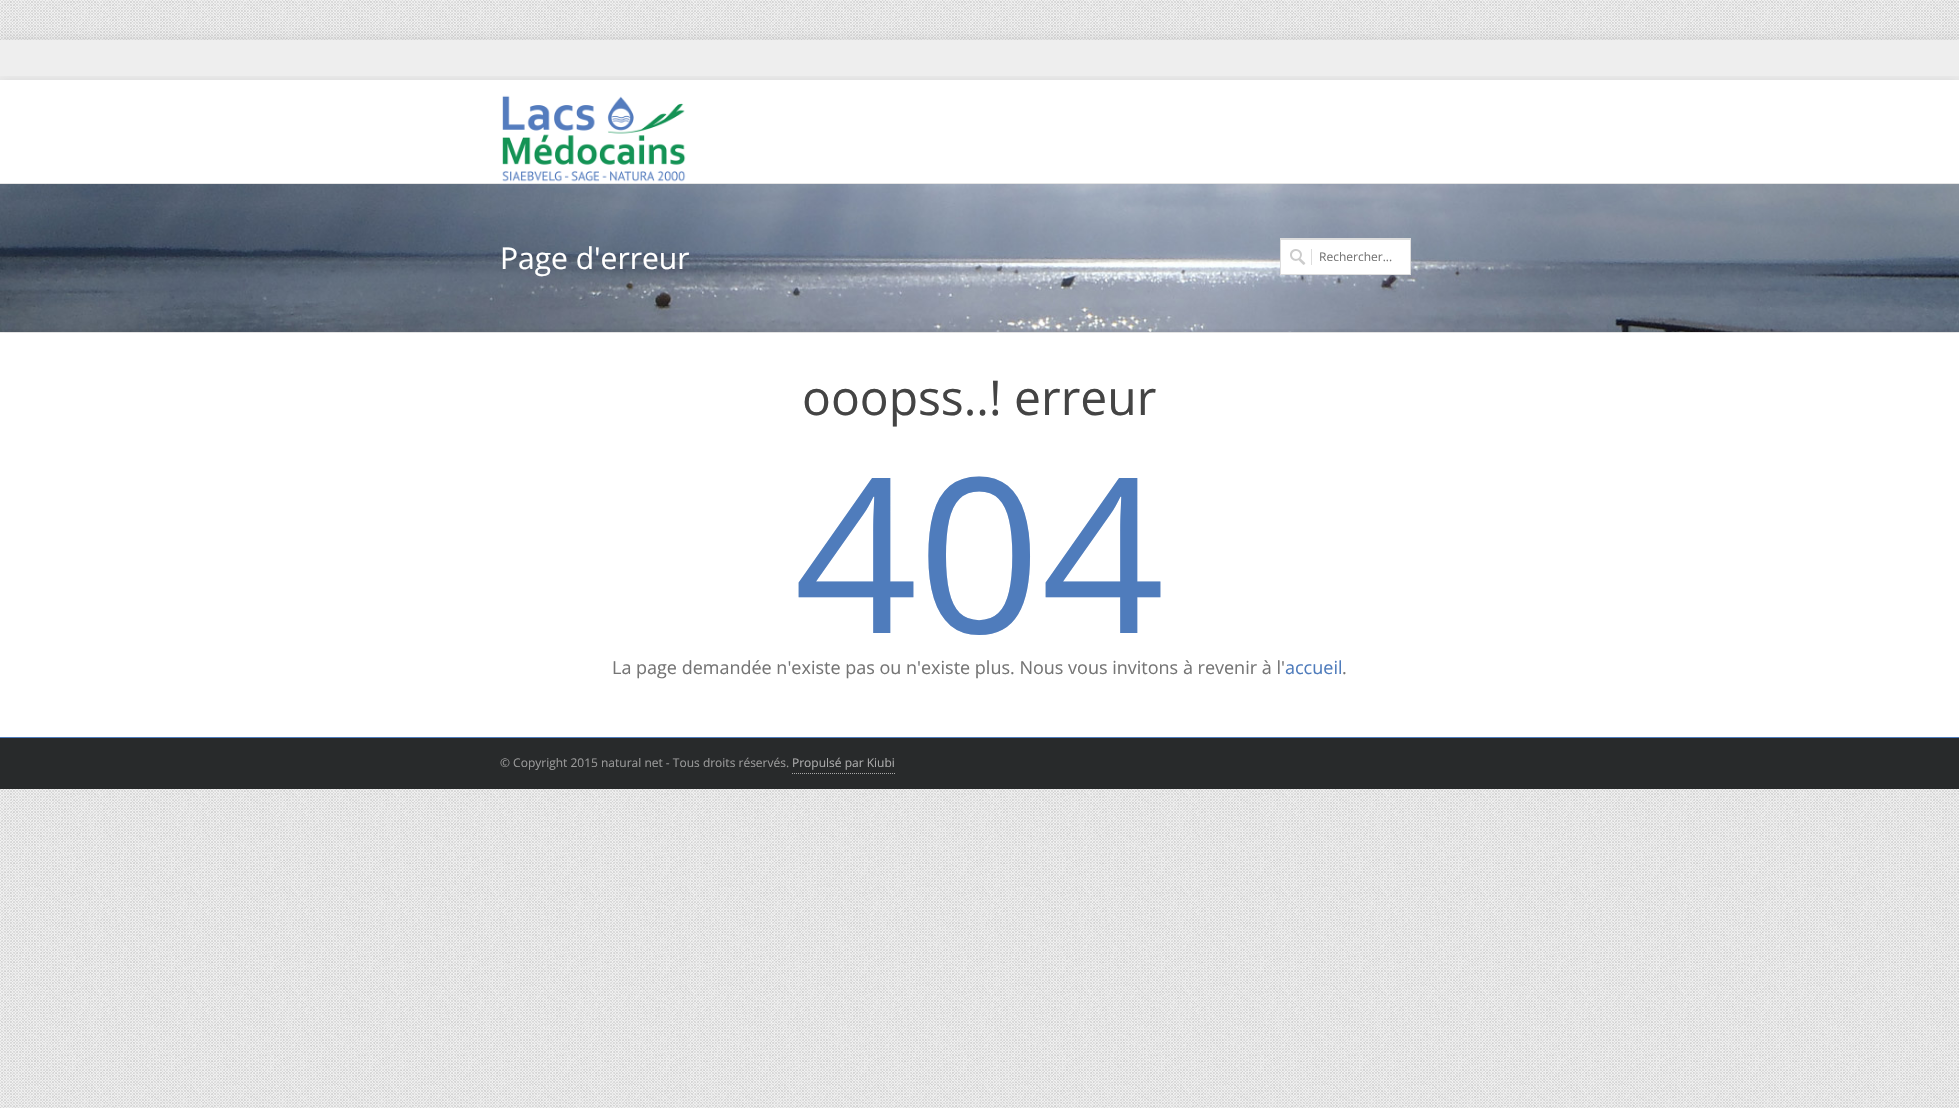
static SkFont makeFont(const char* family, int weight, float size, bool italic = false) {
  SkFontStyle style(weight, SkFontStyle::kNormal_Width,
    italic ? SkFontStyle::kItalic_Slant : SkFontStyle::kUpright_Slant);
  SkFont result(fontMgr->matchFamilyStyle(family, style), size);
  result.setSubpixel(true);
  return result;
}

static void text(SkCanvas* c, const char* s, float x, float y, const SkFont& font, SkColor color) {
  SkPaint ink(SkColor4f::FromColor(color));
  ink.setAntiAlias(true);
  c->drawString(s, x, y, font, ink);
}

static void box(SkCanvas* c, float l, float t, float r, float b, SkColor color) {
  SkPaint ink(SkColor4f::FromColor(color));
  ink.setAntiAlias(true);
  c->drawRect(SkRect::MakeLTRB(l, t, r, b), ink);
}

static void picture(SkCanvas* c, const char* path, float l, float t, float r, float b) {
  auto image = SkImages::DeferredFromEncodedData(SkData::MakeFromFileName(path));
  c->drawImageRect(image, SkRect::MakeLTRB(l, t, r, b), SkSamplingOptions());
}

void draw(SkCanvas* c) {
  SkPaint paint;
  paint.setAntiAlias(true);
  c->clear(0xffffffff);
  picture(c, "img_01.png", 0, 0, 1959, 1108);
  paint.setColor(0x1a000000);
  paint.setMaskFilter(SkMaskFilter::MakeBlur(kNormal_SkBlurStyle, 5));
  c->drawRect(SkRect::MakeLTRB(0, 40, 1959, 737), paint);
  paint.setMaskFilter(nullptr);
  box(c, 0, 80, 1959, 737, 0xffffffff);
  box(c, 0, 40, 1959, 80, 0xffeeeeee);
  c->save();
  c->clipRect(SkRect::MakeLTRB(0, 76, 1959, 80));
  paint.setMaskFilter(SkMaskFilter::MakeBlur(kNormal_SkBlurStyle, 5));
  c->drawRect(SkRect::MakeLTRB(0, 80, 1959, 183), paint);
  paint.setMaskFilter(nullptr);
  c->restore();
  picture(c, "img_02.png", 502, 95, 686, 182);
  picture(c, "img_03.png", 0, 184, 1959, 332);
  box(c, 0, 183, 1959, 184, 0xffe5e5e5);
  box(c, 0, 332, 1959, 333, 0xffeeeeee);
  SkFont face1 = makeFont("Open Sans", 400, 30);
  text(c, "Page d'erreur", 500, 269, face1, 0xffffffff);
  box(c, 1281, 240, 1410, 274, 0xffffffff);
  picture(c, "img_04.png", 1290, 249, 1312, 265);
  box(c, 1280, 238, 1411, 240, 0xffdddddd);
  box(c, 1410, 238, 1411, 275, 0xffdddddd);
  box(c, 1280, 274, 1411, 275, 0xffdddddd);
  box(c, 1280, 238, 1281, 275, 0xffdddddd);
  SkFont face2 = makeFont("Open Sans", 400, 12);
  text(c, "Rechercher...", 1319, 261, face2, 0xff757575);
  c->save();
  c->clipRect(SkRect::MakeLTRB(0, 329, 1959, 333));
  paint.setMaskFilter(SkMaskFilter::MakeBlur(kNormal_SkBlurStyle, 5));
  c->drawRect(SkRect::MakeLTRB(0, 333, 1959, 737), paint);
  paint.setMaskFilter(nullptr);
  c->restore();
  SkFont face3 = makeFont("Open Sans", 400, 48);
  text(c, "ooopss..! erreur", 802, 415, face3, 0xff444444);
  SkFont face4 = makeFont("Open Sans", 400, 216);
  text(c, "404", 794, 633, face4, 0xff4f7cbc);
  SkFont face5 = makeFont("Open Sans", 400, 18);
  text(c, "La page demandée n'existe pas ou n'existe plus. Nous vous invitons à revenir à l'", 612, 674, face5, 0xff757575);
  text(c, "accueil", 1285, 674, face5, 0xff4f7cbc);
  text(c, ".", 1342, 674, face5, 0xff757575);
  box(c, 0, 738, 1959, 789, 0xff282a2b);
  box(c, 0, 737, 1959, 738, 0xff4f7cbc);
  text(c, "© Copyright 2015 natural net - Tous droits réservés.", 500, 767, face2, 0xff999999);
  paint.setStyle(SkPaint::kStroke_Style);
  paint.setStrokeWidth(1);
  paint.setColor(0xffaaaaaa);
  paint.setPathEffect(SkDashPathEffect::Make({{1, 1}}, 0));
  c->drawPath(SkPathBuilder().moveTo(792, 773.5f).lineTo(895, 773.5f).detach(), paint);
  paint.setPathEffect(nullptr);
  text(c, "Propulsé par Kiubi", 792, 767, face2, 0xffaaaaaa);
}
